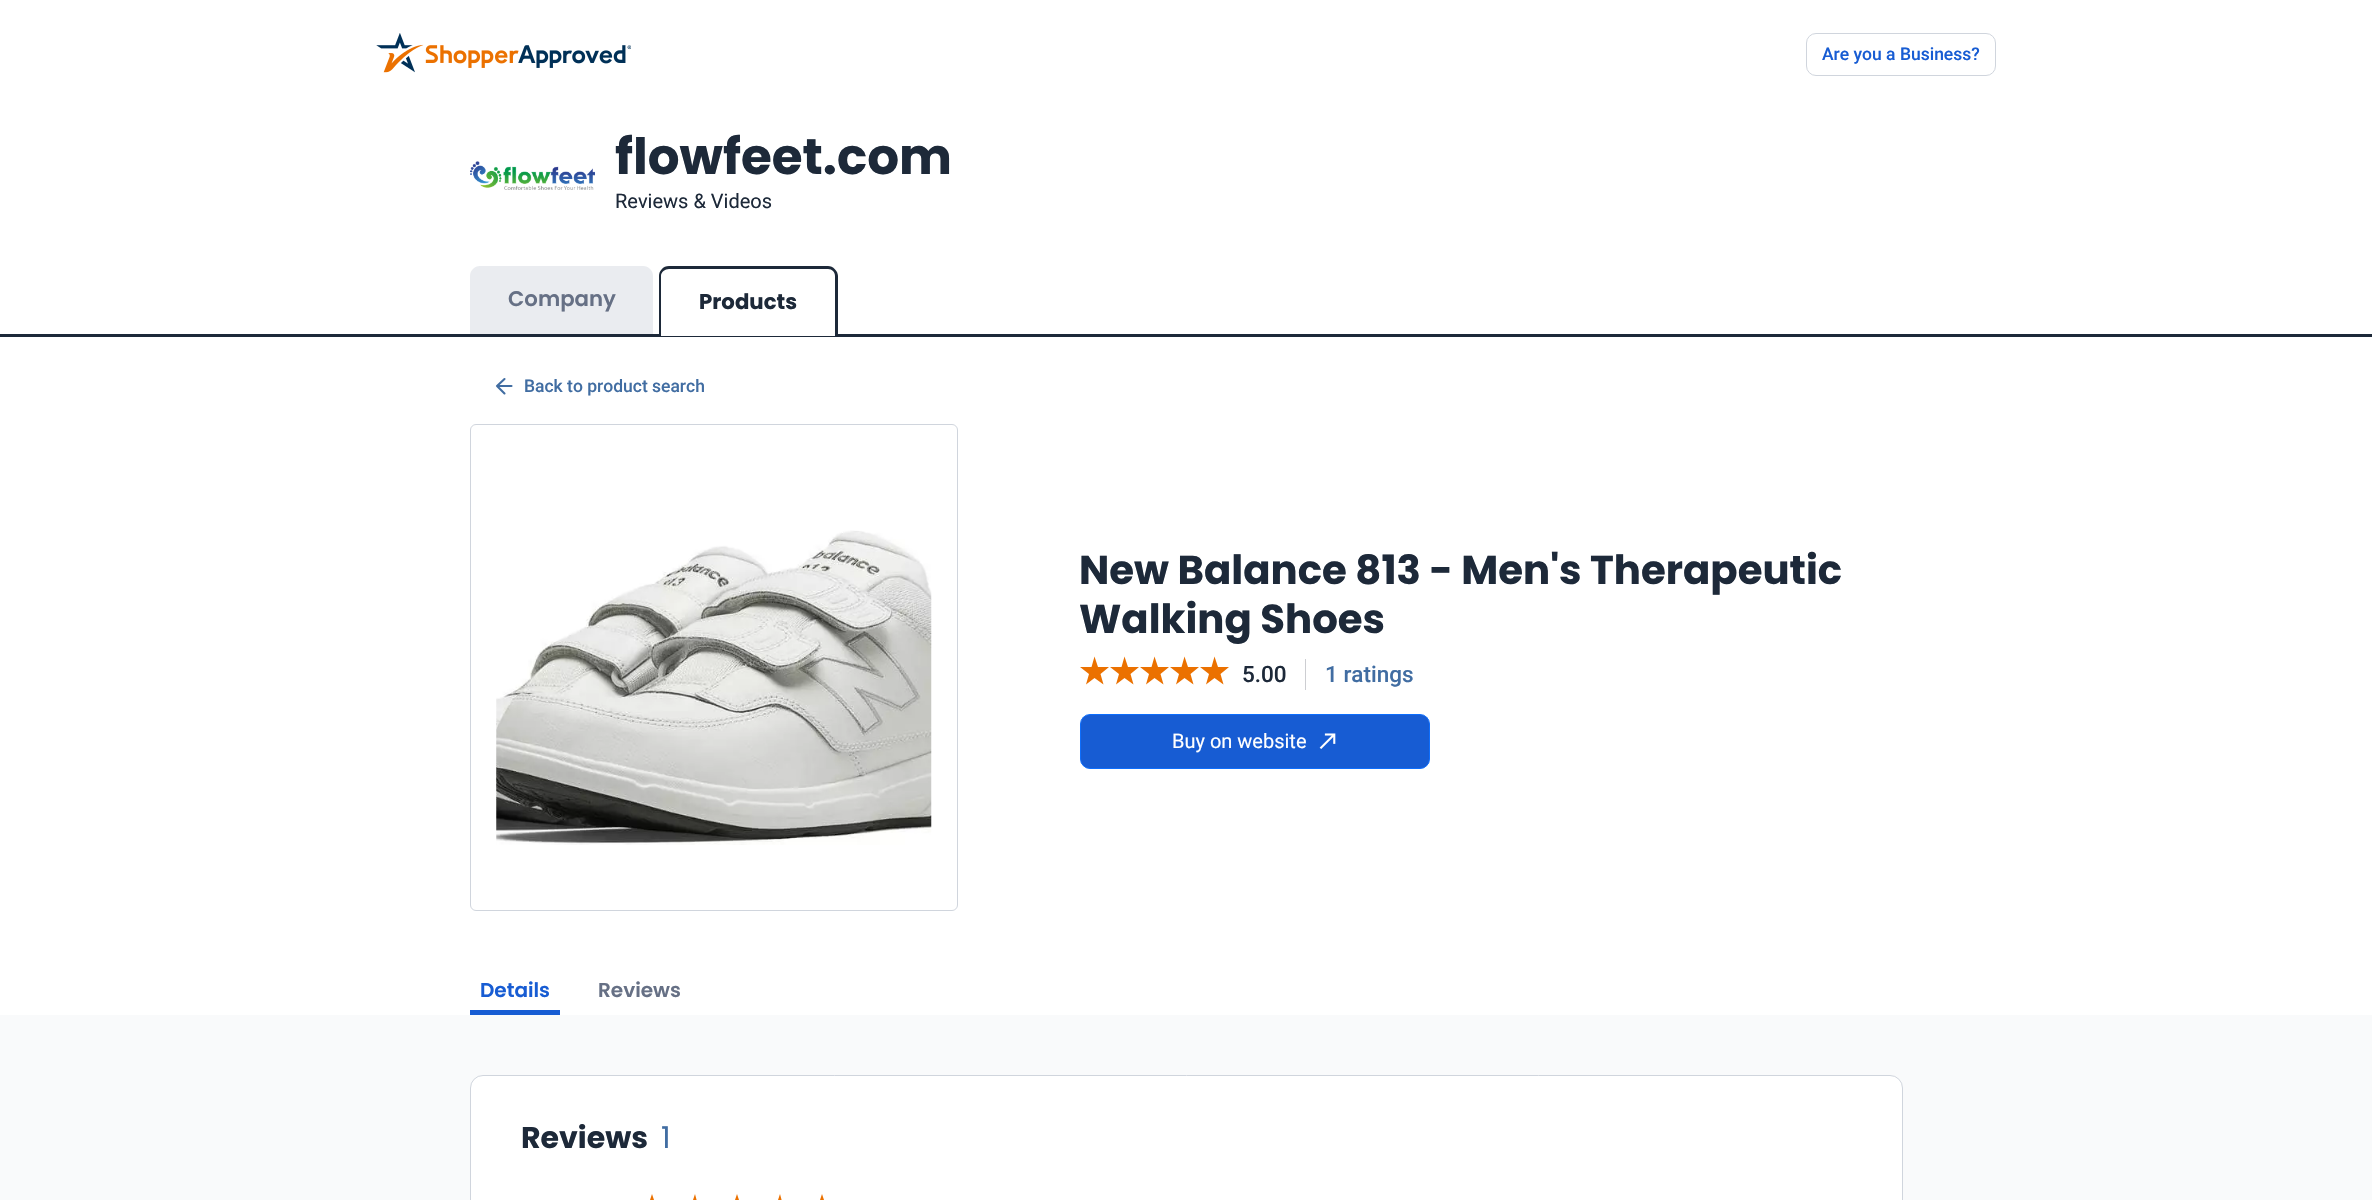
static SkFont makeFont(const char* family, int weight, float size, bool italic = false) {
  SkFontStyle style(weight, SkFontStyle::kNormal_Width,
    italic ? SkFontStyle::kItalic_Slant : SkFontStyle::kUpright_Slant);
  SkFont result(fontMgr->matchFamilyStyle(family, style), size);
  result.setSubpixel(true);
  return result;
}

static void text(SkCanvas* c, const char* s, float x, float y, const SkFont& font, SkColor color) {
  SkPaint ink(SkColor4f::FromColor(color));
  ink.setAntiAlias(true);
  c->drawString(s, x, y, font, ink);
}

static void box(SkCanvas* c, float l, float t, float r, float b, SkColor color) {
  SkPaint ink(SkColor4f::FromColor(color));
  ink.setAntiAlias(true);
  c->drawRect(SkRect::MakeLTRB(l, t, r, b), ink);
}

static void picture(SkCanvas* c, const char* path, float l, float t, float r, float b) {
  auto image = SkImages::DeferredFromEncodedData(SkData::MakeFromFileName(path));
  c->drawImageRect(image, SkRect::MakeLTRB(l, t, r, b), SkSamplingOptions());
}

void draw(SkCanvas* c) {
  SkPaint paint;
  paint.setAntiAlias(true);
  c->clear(0xffffffff);
  picture(c, "img_01.png", 376, 33, 631, 73);
  paint.setStyle(SkPaint::kStroke_Style);
  paint.setStrokeWidth(1);
  paint.setColor(0xffd0d5dd);
  c->drawRoundRect(SkRect::MakeLTRB(1806.5f, 33.5f, 1995.5f, 75.5f), 9.5f, 9.5f, paint);
  SkFont face1 = makeFont("Roboto", 500, 17.5f);
  text(c, "Are you a Business?", 1822, 60, face1, 0xff175cd3);
  picture(c, "img_02.png", 470, 161, 595, 190);
  SkFont face2 = makeFont("Poppins", 700, 50);
  text(c, "flowfeet.com", 615, 174, face2, 0xff1d2939);
  SkFont face3 = makeFont("Roboto", 400, 20);
  text(c, "Reviews & Videos", 615, 208, face3, 0xff1d2939);
  box(c, 0, 334, 2372, 337, 0xff1d2939);
  paint.setStyle(SkPaint::kFill_Style);
  paint.setColor(0xffeaecf0);
  c->drawPath(SkPathBuilder().moveTo(480, 266).lineTo(643, 266).cubicTo(648.5f, 266, 653, 270.5f, 653, 276).lineTo(653, 334).lineTo(470, 334).lineTo(470, 276).cubicTo(470, 270.5f, 474.5f, 266, 480, 266).close().detach(), paint);
  SkFont face4 = makeFont("Poppins", 600, 21.25f);
  text(c, "Company", 508, 306, face4, 0xff667085);
  paint.setColor(0xffffffff);
  c->drawPath(SkPathBuilder().moveTo(669, 266).lineTo(828, 266).cubicTo(833.5f, 266, 838, 270.5f, 838, 276).lineTo(838, 336).lineTo(659, 336).lineTo(659, 276).cubicTo(659, 270.5f, 663.5f, 266, 669, 266).close().detach(), paint);
  paint.setColor(0xff1d2939);
  c->drawPath(SkPathBuilder(SkPathFillType::kEvenOdd).moveTo(669, 266).lineTo(828, 266).cubicTo(833, 266, 838, 271, 838, 276).lineTo(838, 336).lineTo(659, 336).lineTo(659, 276).cubicTo(659, 271, 663, 266, 669, 266).close().moveTo(669, 269).lineTo(828, 269).cubicTo(832, 269, 835, 272, 835, 276).lineTo(835, 336).lineTo(661, 336).lineTo(661, 276).cubicTo(661, 272, 665, 269, 669, 269).close().detach(), paint);
  SkFont face5 = makeFont("Poppins", 700, 21.25f);
  text(c, "Products", 699, 309, face5, 0xff1d2939);
  paint.setStyle(SkPaint::kStroke_Style);
  paint.setStrokeWidth(2.1f);
  paint.setStrokeCap(SkPaint::kRound_Cap);
  paint.setStrokeJoin(SkPaint::kRound_Join);
  paint.setColor(0xff416da2);
  c->drawPath(SkPathBuilder().moveTo(511.5f, 386).lineTo(497, 386).moveTo(497, 386).lineTo(504.5f, 393.5f).moveTo(497, 386).lineTo(504.5f, 379).detach(), paint);
  text(c, "Back to product search", 524, 392, face1, 0xff416da2);
  paint.setStrokeWidth(1);
  paint.setStrokeCap(SkPaint::kButt_Cap);
  paint.setStrokeJoin(SkPaint::kMiter_Join);
  paint.setColor(0xffd0d5dd);
  c->drawRoundRect(SkRect::MakeLTRB(470.5f, 424.5f, 957.5f, 910.5f), 5.5f, 5.5f, paint);
  picture(c, "img_03.png", 496, 530, 932, 845);
  SkFont face6 = makeFont("Poppins", 700, 40.25f);
  text(c, "New Balance 813 - Men's Therapeutic", 1079, 584, face6, 0xff1d2939);
  text(c, "Walking Shoes", 1079, 633, face6, 0xff1d2939);
  paint.setStyle(SkPaint::kFill_Style);
  paint.setColor(0xffeb7100);
  c->drawPath(SkPathBuilder().moveTo(1094.5f, 656.5f).lineTo(1098, 667).lineTo(1109, 667).lineTo(1100.5f, 674).lineTo(1103.5f, 684.5f).lineTo(1094.5f, 678).lineTo(1086, 684.5f).lineTo(1089, 674).lineTo(1080, 667).lineTo(1091.5f, 667).close().moveTo(1124.5f, 656.5f).lineTo(1128, 667).lineTo(1139, 667).lineTo(1130.5f, 674).lineTo(1133.5f, 684.5f).lineTo(1124.5f, 678).lineTo(1116, 684.5f).lineTo(1119, 674).lineTo(1110, 667).lineTo(1121.5f, 667).close().detach(), paint);
  c->drawPath(SkPathBuilder().moveTo(1154.5f, 656.5f).lineTo(1158, 667).lineTo(1169, 667).lineTo(1160.5f, 674).lineTo(1163.5f, 684.5f).lineTo(1154.5f, 678).lineTo(1146, 684.5f).lineTo(1149, 674).lineTo(1140, 667).lineTo(1151.5f, 667).close().moveTo(1184.5f, 656.5f).lineTo(1188, 667).lineTo(1199, 667).lineTo(1190.5f, 674).lineTo(1193.5f, 684.5f).lineTo(1184.5f, 678).lineTo(1176, 684.5f).lineTo(1179, 674).lineTo(1170, 667).lineTo(1181.5f, 667).close().detach(), paint);
  c->drawPath(SkPathBuilder().moveTo(1214.5f, 656.5f).lineTo(1218, 667).lineTo(1229, 667).lineTo(1220.5f, 674).lineTo(1223.5f, 684.5f).lineTo(1214.5f, 678).lineTo(1206, 684.5f).lineTo(1209, 674).lineTo(1200, 667).lineTo(1211.5f, 667).close().detach(), paint);
  SkFont face7 = makeFont("Roboto", 500, 22.5f);
  text(c, "5.00", 1242, 682, face7, 0xff1d2939);
  box(c, 1305, 659, 1306, 690, 0xffcdced2);
  text(c, "1 ratings", 1325, 682, face7, 0xff416da2);
  paint.setColor(0xff175cd3);
  c->drawRoundRect(SkRect::MakeLTRB(1080.5f, 714.5f, 1429.5f, 768.5f), 9.5f, 9.5f, paint);
  paint.setStyle(SkPaint::kStroke_Style);
  paint.setColor(0xff0d6efd);
  c->drawRoundRect(SkRect::MakeLTRB(1080.5f, 714.5f, 1429.5f, 768.5f), 9.5f, 9.5f, paint);
  text(c, "Buy on website", 1172, 748, face3, 0xffffffff);
  picture(c, "img_04.png", 1319, 733, 1336, 749);
  SkFont face8 = makeFont("Poppins", 600, 20);
  text(c, "Details", 480, 997, face8, 0xff175cd3);
  box(c, 470, 1010, 560, 1015, 0xff175cd3);
  text(c, "Reviews", 598, 997, face8, 0xff667085);
  box(c, 0, 1015, 2372, 1200, 0xfff9fafb);
  paint.setStyle(SkPaint::kFill_Style);
  paint.setColor(0xffffffff);
  c->drawRoundRect(SkRect::MakeLTRB(470.5f, 1075.5f, 1902.5f, 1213.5f), 12.5f, 12.5f, paint);
  paint.setStyle(SkPaint::kStroke_Style);
  paint.setColor(0xffd0d5dd);
  c->drawRoundRect(SkRect::MakeLTRB(470.5f, 1075.5f, 1902.5f, 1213.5f), 12.5f, 12.5f, paint);
  SkFont face9 = makeFont("Poppins", 700, 30);
  text(c, "Reviews", 521, 1148, face9, 0xff1d2939);
  SkFont face10 = makeFont("Poppins", 400, 30);
  text(c, "1", 661, 1148, face10, 0xff416da2);
  paint.setStyle(SkPaint::kFill_Style);
  paint.setColor(0xffeb7100);
  c->drawPath(SkPathBuilder().moveTo(652, 1194).lineTo(657, 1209).lineTo(673, 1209).lineTo(660, 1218).lineTo(665, 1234).lineTo(652, 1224).lineTo(639, 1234).lineTo(644, 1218).lineTo(632, 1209).lineTo(647, 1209).close().moveTo(695, 1194).lineTo(699, 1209).lineTo(715, 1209).lineTo(702, 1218).lineTo(707, 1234).lineTo(695, 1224).lineTo(682, 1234).lineTo(687, 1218).lineTo(674, 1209).lineTo(690, 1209).close().detach(), paint);
  c->drawPath(SkPathBuilder().moveTo(737, 1194).lineTo(742, 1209).lineTo(758, 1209).lineTo(745, 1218).lineTo(750, 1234).lineTo(737, 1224).lineTo(724, 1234).lineTo(729, 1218).lineTo(717, 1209).lineTo(732, 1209).close().moveTo(780, 1194).lineTo(784, 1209).lineTo(800, 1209).lineTo(787, 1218).lineTo(792, 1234).lineTo(780, 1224).lineTo(767, 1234).lineTo(772, 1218).lineTo(759, 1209).lineTo(775, 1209).close().detach(), paint);
  c->drawPath(SkPathBuilder().moveTo(822, 1194).lineTo(827, 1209).lineTo(843, 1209).lineTo(830, 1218).lineTo(835, 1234).lineTo(822, 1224).lineTo(809, 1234).lineTo(814, 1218).lineTo(802, 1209).lineTo(817, 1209).close().detach(), paint);
}
